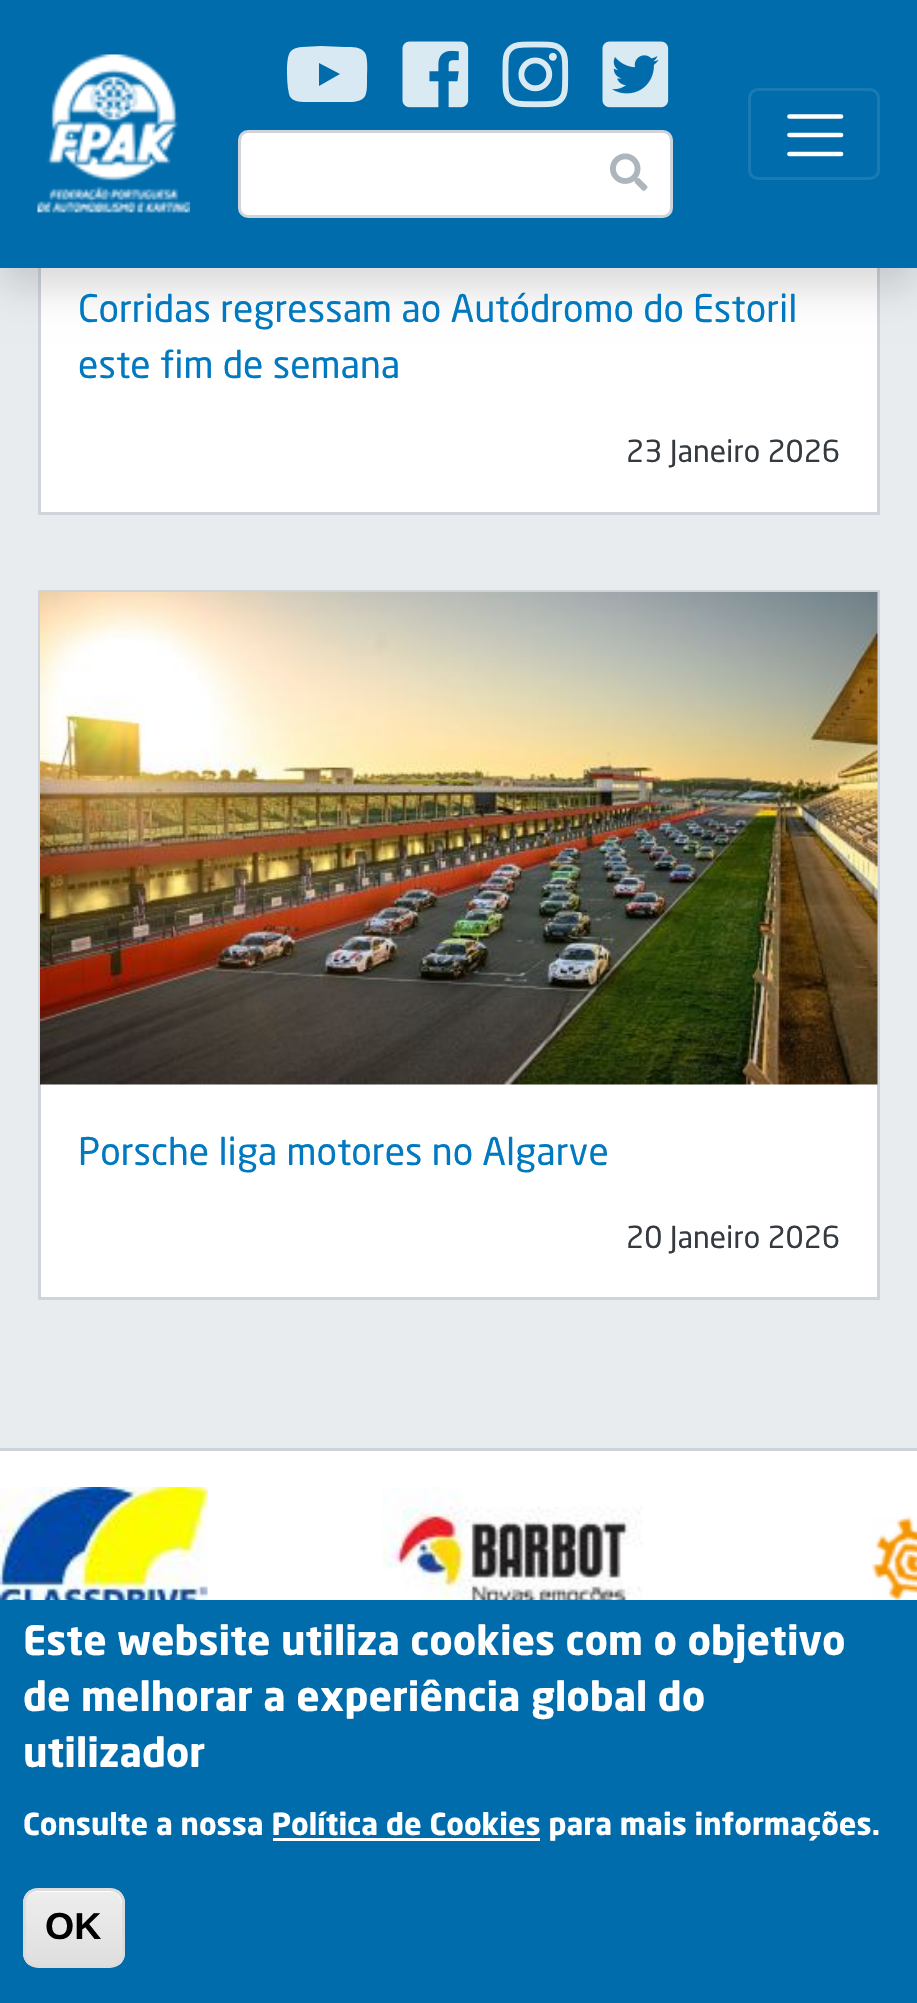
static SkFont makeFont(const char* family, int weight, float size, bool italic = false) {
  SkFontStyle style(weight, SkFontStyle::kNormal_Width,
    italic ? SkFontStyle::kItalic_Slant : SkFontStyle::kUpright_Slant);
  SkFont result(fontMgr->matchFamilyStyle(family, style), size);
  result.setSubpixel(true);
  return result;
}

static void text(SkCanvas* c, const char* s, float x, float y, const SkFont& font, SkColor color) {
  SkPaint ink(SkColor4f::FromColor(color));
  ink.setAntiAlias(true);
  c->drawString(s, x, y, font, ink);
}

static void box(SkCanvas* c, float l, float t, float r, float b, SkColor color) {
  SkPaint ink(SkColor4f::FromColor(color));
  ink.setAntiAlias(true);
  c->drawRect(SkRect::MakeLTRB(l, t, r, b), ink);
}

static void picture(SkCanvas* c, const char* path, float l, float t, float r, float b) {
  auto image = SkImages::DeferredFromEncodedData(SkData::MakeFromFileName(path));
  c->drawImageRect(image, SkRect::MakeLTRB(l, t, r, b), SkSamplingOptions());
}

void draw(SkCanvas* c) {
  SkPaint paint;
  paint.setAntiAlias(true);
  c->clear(0xffe9ecef);
  box(c, 41, 268, 877, 512, 0xffffffff);
  paint.setStyle(SkPaint::kStroke_Style);
  paint.setStrokeWidth(3);
  paint.setColor(0xffced4da);
  c->drawRect(SkRect::MakeLTRB(39.5f, -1.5f, 878.5f, 513.5f), paint);
  paint.setStyle(SkPaint::kFill_Style);
  paint.setColor(0x26000000);
  paint.setMaskFilter(SkMaskFilter::MakeBlur(kNormal_SkBlurStyle, 19));
  c->drawRect(SkRect::MakeLTRB(0, 20, 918, 288), paint);
  paint.setMaskFilter(nullptr);
  box(c, 0, 0, 917, 268, 0xff006cac);
  picture(c, "img_01.png", 37, 54, 190, 213);
  paint.setColor(0xffd9e9f3);
  c->drawPath(SkPathBuilder().moveTo(366, 55).cubicTo(363, 46, 351, 47, 344, 47).lineTo(321, 46).lineTo(302, 47).cubicTo(288, 48, 288, 55, 287, 68).cubicTo(287, 76, 287, 86, 289, 94).cubicTo(291, 103, 303, 102, 311, 102).lineTo(334, 102).lineTo(352, 102).cubicTo(367, 101, 367, 94, 367, 80).cubicTo(367, 72, 368, 63, 366, 55).close().moveTo(319, 86).lineTo(319, 63).lineTo(340, 74).close().detach(), paint);
  picture(c, "img_02.png", 402, 41, 469, 108);
  picture(c, "img_03.png", 502, 41, 569, 108);
  picture(c, "img_04.png", 602, 41, 669, 108);
  paint.setColor(0xffffffff);
  c->drawRoundRect(SkRect::MakeLTRB(239.5f, 131.5f, 671.5f, 216.5f), 8.5f, 8.5f, paint);
  paint.setStyle(SkPaint::kStroke_Style);
  paint.setColor(0xffced4da);
  c->drawRoundRect(SkRect::MakeLTRB(239.5f, 131.5f, 671.5f, 216.5f), 8.5f, 8.5f, paint);
  picture(c, "img_05.png", 610, 153, 648, 191);
  paint.setColor(0xff1a7bb4);
  c->drawRoundRect(SkRect::MakeLTRB(749.5f, 89.5f, 878.5f, 178.5f), 8.5f, 8.5f, paint);
  paint.setStrokeWidth(4.7f);
  paint.setStrokeCap(SkPaint::kRound_Cap);
  paint.setColor(0xffffffff);
  c->drawPath(SkPathBuilder().moveTo(789.5f, 116.5f).lineTo(841, 116.5f).moveTo(789.5f, 135).lineTo(841, 135).moveTo(789.5f, 154).lineTo(841, 154).detach(), paint);
  SkFont face1 = makeFont("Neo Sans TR", 400, 37.5f);
  text(c, "Corridas regressam ao Autódromo do Estoril", 78, 322, face1, 0xff0079c0);
  text(c, "este fim de semana", 78, 378, face1, 0xff0079c0);
  SkFont face2 = makeFont("Neo Sans TR", 400, 30);
  text(c, "23 Janeiro 2026", 626, 462, face2, 0xff343a40);
  box(c, 41, 1084, 877, 1297, 0xffffffff);
  paint.setStrokeWidth(3);
  paint.setStrokeCap(SkPaint::kButt_Cap);
  paint.setColor(0xffced4da);
  c->drawRect(SkRect::MakeLTRB(39.5f, 591.5f, 878.5f, 1298.5f), paint);
  picture(c, "img_06.png", 40, 592, 878, 1085);
  text(c, "Porsche liga motores no Algarve", 78, 1165, face1, 0xff0079c0);
  text(c, "20 Janeiro 2026", 626, 1248, face2, 0xff343a40);
  box(c, 0, 1451, 917, 1600, 0xffffffff);
  box(c, 0, 1448, 917, 1451, 0xffced4da);
  picture(c, "img_07.png", 0, 1487, 208, 1600);
  picture(c, "img_08.png", 382, 1487, 643, 1600);
  picture(c, "img_09.png", 871, 1516, 917, 1600);
  box(c, 0, 1600, 917, 2003, 0xff006cac);
  SkFont face3 = makeFont("Neo Sans  TR", 700, 40);
  text(c, "Este website utiliza cookies com o objetivo", 23, 1655, face3, 0xffffffff);
  text(c, "de melhorar a experiência global do", 23, 1711, face3, 0xffffffff);
  text(c, "utilizador", 23, 1767, face3, 0xffffffff);
  SkFont face4 = makeFont("Neo Sans  TR", 700, 30);
  text(c, "Consulte a nossa Política de Cookies para mais informações.", 23, 1835, face4, 0xffffffff);
  box(c, 273, 1838, 540, 1841, 0xffffffff);
  c->save();
  c->clipPath(SkPathBuilder().moveTo(38, 1888).lineTo(110, 1888).cubicTo(118.5f, 1888, 125, 1894.5f, 125, 1903).lineTo(125, 1953).cubicTo(125, 1961.5f, 118.5f, 1968, 110, 1968).lineTo(38, 1968).cubicTo(29.5f, 1968, 23, 1961.5f, 23, 1953).lineTo(23, 1903).cubicTo(23, 1894.5f, 29.5f, 1888, 38, 1888).close().detach(), true);
  paint.setStyle(SkPaint::kFill_Style);
  {
    const SkColor colors[] = {0xffededed, 0xffdfdfdf};
    const float stops[] = {0.05f, 1};
    const SkPoint ends[] = {{74, 1890}, {74, 1965}};
    paint.setShader(SkGradientShader::MakeLinear(ends, colors, stops, 2, SkTileMode::kClamp));
    paint.setAlpha(255);
  }
  c->drawRect(SkRect::MakeLTRB(23, 1890, 125, 1965), paint);
  c->restore();
  paint.setShader(nullptr);
  paint.setColor(0xffffffff);
  c->drawPath(SkPathBuilder().moveTo(38, 1892).lineTo(113, 1892).cubicTo(125, 1895, 122, 1913, 122, 1922).lineTo(122, 1957).cubicTo(123, 1956, 123, 1954, 123, 1952).lineTo(123, 1903).cubicTo(123, 1896, 117, 1890, 110, 1890).lineTo(38, 1890).cubicTo(31, 1890, 25, 1896, 25, 1903).lineTo(25, 1905).cubicTo(25, 1898, 31, 1892, 38, 1892).close().detach(), paint);
  paint.setStyle(SkPaint::kStroke_Style);
  paint.setColor(0xffdcdcdc);
  c->drawRoundRect(SkRect::MakeLTRB(24.5f, 1889.5f, 123.5f, 1966.5f), 13.5f, 13.5f, paint);
  SkFont face5 = makeFont("Liberation Sans", 700, 37.5f);
  text(c, "OK", 45, 1939, face5, 0xff000000);
}
